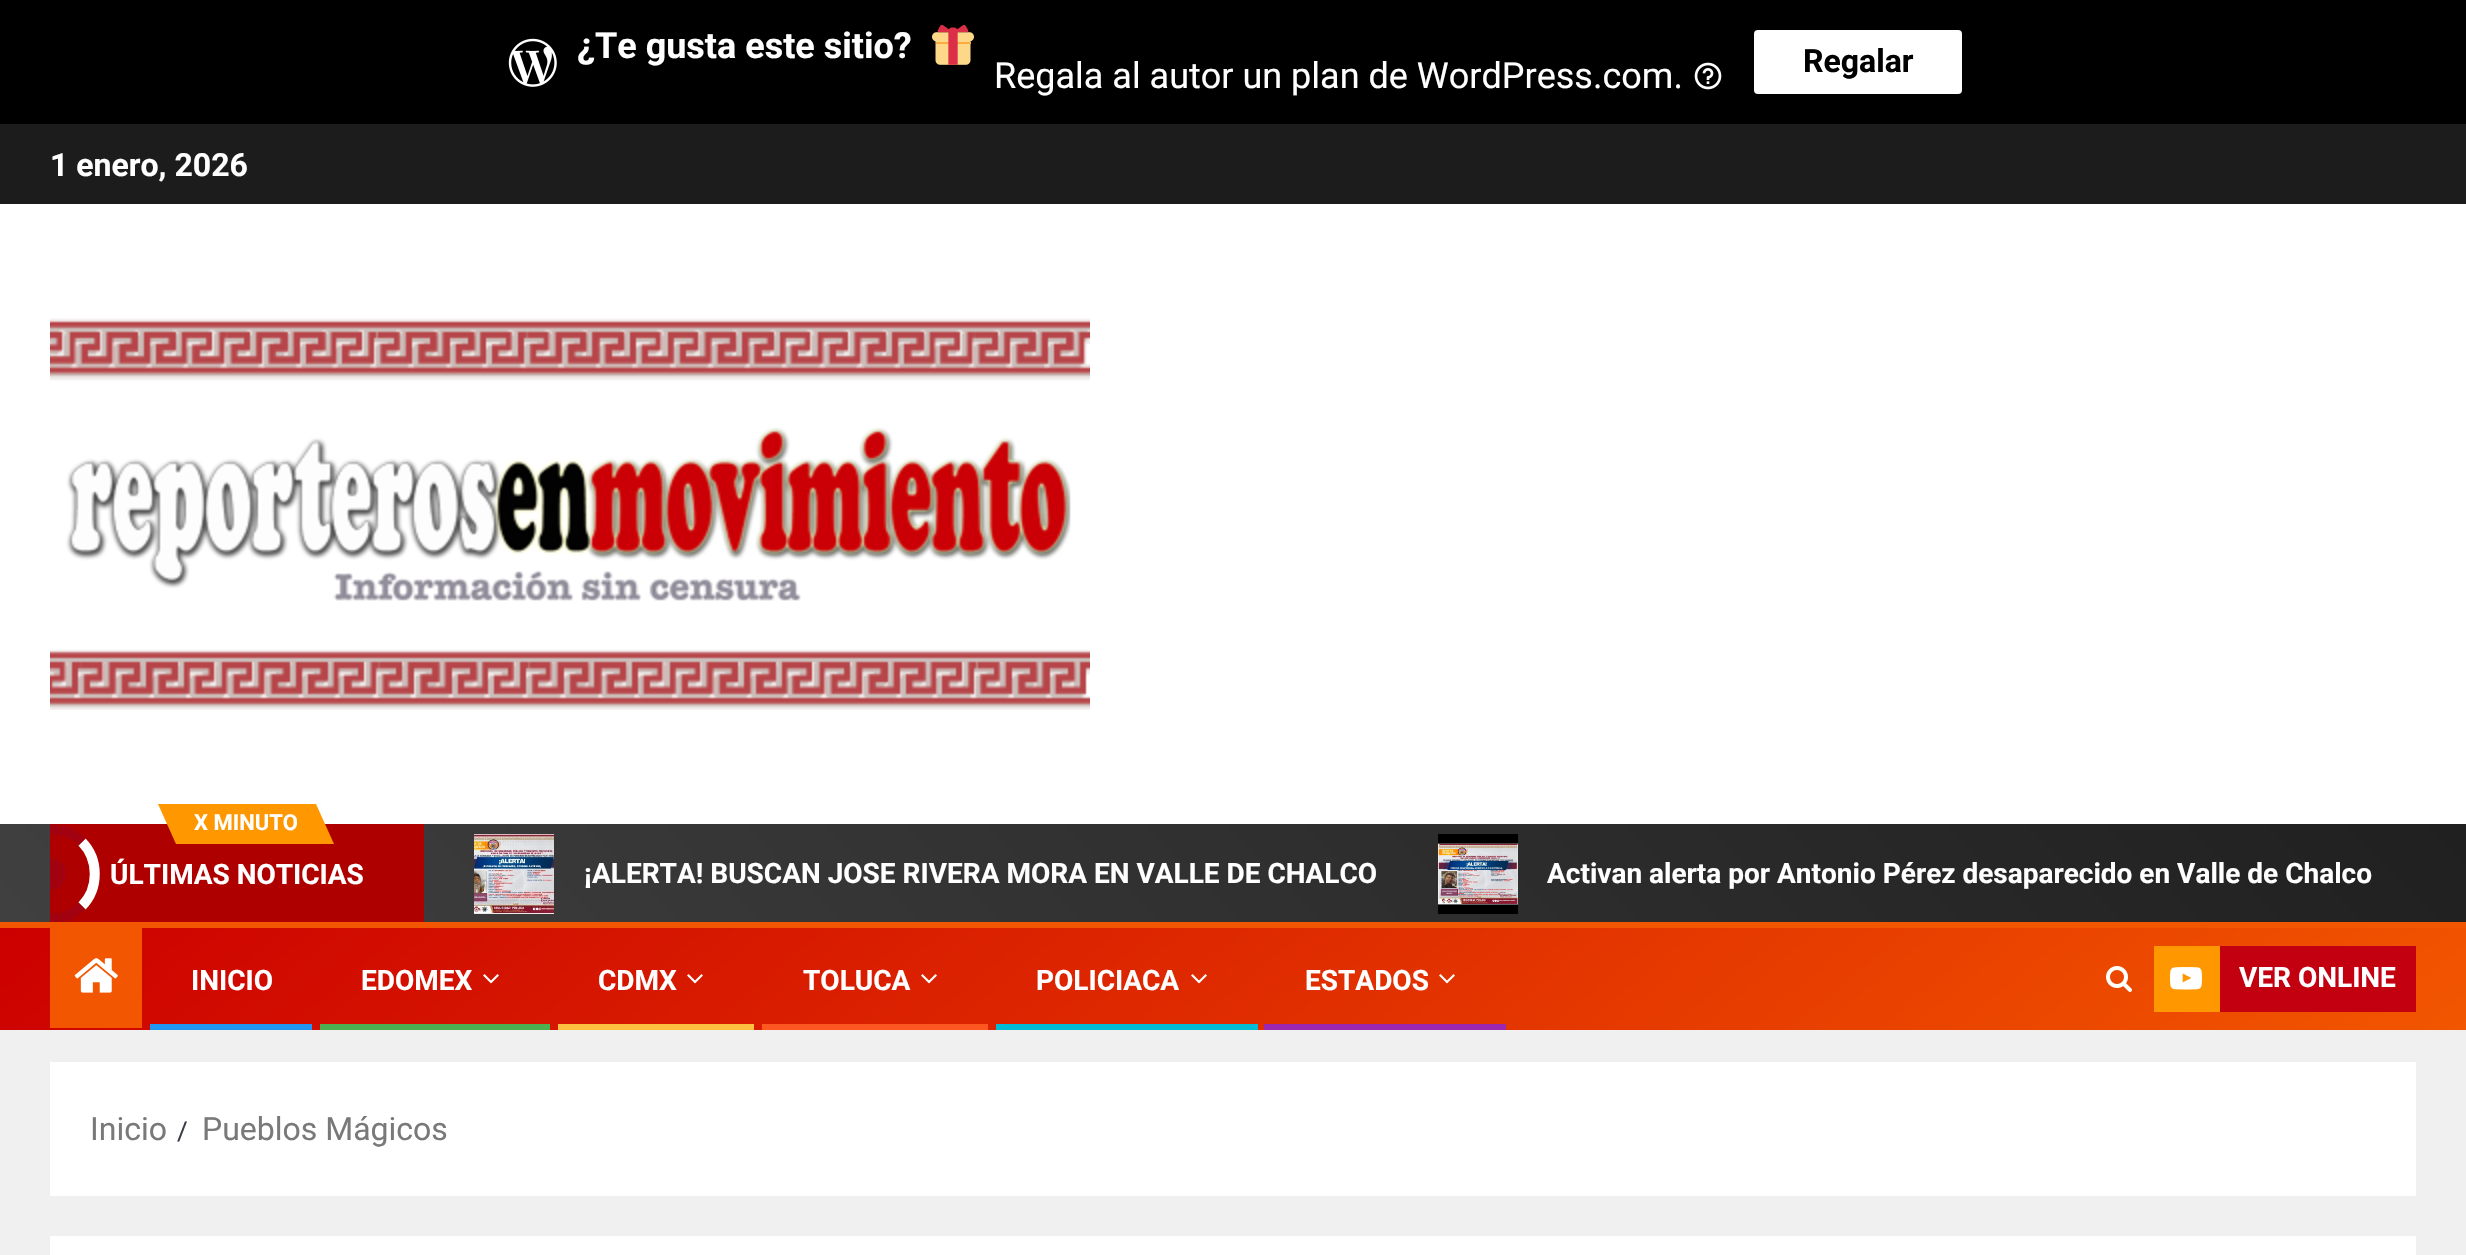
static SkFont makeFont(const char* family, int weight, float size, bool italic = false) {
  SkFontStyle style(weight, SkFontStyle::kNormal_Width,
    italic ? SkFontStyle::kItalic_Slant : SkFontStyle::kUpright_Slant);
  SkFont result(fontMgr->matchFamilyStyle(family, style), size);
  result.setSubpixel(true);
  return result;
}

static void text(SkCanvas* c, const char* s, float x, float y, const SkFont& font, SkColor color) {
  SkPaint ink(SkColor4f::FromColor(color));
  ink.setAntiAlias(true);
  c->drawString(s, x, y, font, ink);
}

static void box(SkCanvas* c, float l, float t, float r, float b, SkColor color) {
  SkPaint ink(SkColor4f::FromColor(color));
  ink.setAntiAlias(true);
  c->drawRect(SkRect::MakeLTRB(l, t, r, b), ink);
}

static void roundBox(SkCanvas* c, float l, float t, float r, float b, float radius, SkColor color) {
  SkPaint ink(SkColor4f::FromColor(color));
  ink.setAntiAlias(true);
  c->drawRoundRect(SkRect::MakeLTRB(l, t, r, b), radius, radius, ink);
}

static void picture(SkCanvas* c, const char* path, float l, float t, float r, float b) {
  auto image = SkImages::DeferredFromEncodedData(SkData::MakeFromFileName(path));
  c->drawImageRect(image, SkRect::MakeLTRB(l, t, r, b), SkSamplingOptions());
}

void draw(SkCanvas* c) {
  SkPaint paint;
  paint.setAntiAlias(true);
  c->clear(0xfff0f0f0);
  box(c, 0, 0, 2466, 124, 0xff000000);
  picture(c, "img_01.png", 508, 38, 557, 87);
  SkFont face1 = makeFont("Roboto", 700, 36);
  text(c, "¿Te gusta este sitio?", 577, 58, face1, 0xffffffff);
  picture(c, "img_02.png", 932, 25, 974, 65);
  SkFont face2 = makeFont("Roboto", 400, 36);
  text(c, "Regala al autor un plan de WordPress.com.", 994, 88, face2, 0xffffffff);
  picture(c, "img_03.png", 1694, 62, 1722, 90);
  roundBox(c, 1754, 30, 1962, 94, 4, 0xffffffff);
  SkFont face3 = makeFont("Roboto", 700, 32);
  text(c, "Regalar", 1803, 72, face3, 0xff000000);
  box(c, 0, 204, 2466, 824, 0xffffffff);
  box(c, 0, 124, 2466, 204, 0xff1c1c1c);
  text(c, "1 enero, 2026", 50, 176, face3, 0xffffffff);
  picture(c, "img_04.png", 50, 318, 1090, 710);
  {
    const SkColor colors[] = {0xff404040, 0xff202020};
    const float stops[] = {0, 1};
    const SkPoint ends[] = {{592, 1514}, {1874, 232}};
    paint.setShader(SkGradientShader::MakeLinear(ends, colors, stops, 2, SkTileMode::kClamp));
    paint.setAlpha(255);
  }
  c->drawRect(SkRect::MakeLTRB(0, 824, 2466, 922), paint);
  box(c, 50, 824, 424, 922, 0xffaf0000);
  box(c, 176, 804, 316, 844, 0xffff9800);
  paint.setShader(nullptr);
  paint.setColor(0xffff9800);
  c->drawPath(SkPathBuilder().moveTo(158, 804).lineTo(176, 804).lineTo(176, 844).close().detach(), paint);
  SkFont face4 = makeFont("Roboto", 700, 22);
  text(c, "X MINUTO", 194, 830, face4, 0xffffffff);
  c->drawPath(SkPathBuilder().moveTo(334, 844).lineTo(316, 844).lineTo(316, 804).close().detach(), paint);
  paint.setStyle(SkPaint::kStroke_Style);
  paint.setStrokeWidth(10);
  paint.setColor(0xffffffff);
  c->drawPath(SkPathBuilder().moveTo(82, 842).cubicTo(99, 859.5f, 99, 888.5f, 82, 906).detach(), paint);
  c->save();
  c->clipRect(SkRect::MakeLTRB(50, 824, 424, 922));
  paint.setColor(0xffa2020f);
  c->drawPath(SkPathBuilder().moveTo(18, 842).cubicTo(35.5f, 825, 64.5f, 825, 82, 842).detach(), paint);
  c->drawPath(SkPathBuilder().moveTo(82, 906).cubicTo(64.5f, 923, 35.5f, 923, 18, 906).detach(), paint);
  c->restore();
  paint.setStyle(SkPaint::kFill_Style);
  c->drawPath(SkPathBuilder().moveTo(50, 858).cubicTo(59, 858, 66, 865, 66, 874).cubicTo(66, 883, 59, 890, 50, 890).close().detach(), paint);
  SkFont face5 = makeFont("Roboto", 700, 28);
  text(c, "ÚLTIMAS NOTICIAS", 110, 884, face5, 0xffffffff);
  picture(c, "img_05.png", 474, 834, 554, 914);
  text(c, "¡ALERTA! BUSCAN JOSE RIVERA MORA EN VALLE DE CHALCO", 584, 883, face5, 0xffffffff);
  picture(c, "img_06.png", 1438, 834, 1518, 914);
  text(c, "Activan alerta por Antonio Pérez desaparecido en Valle de Chalco", 1547, 883, face5, 0xffffffff);
  {
    const SkColor colors[] = {0xffcc0000, 0xfff25600};
    const float stops[] = {0, 1};
    const SkPoint ends[] = {{698, 342}, {1768, 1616}};
    paint.setShader(SkGradientShader::MakeLinear(ends, colors, stops, 2, SkTileMode::kClamp));
    paint.setAlpha(255);
  }
  c->drawRect(SkRect::MakeLTRB(0, 928, 2466, 1030), paint);
  box(c, 0, 922, 2466, 928, 0xfff25600);
  box(c, 50, 928, 142, 1028, 0xfff25600);
  picture(c, "img_07.png", 74, 958, 118, 993);
  text(c, "INICIO", 191, 990, face5, 0xffffffff);
  box(c, 150, 1024, 312, 1030, 0xff2196f3);
  text(c, "EDOMEX", 361, 990, face5, 0xffffffff);
  picture(c, "img_08.png", 483, 974, 499, 984);
  box(c, 320, 1024, 550, 1030, 0xff4caf50);
  text(c, "CDMX", 598, 990, face5, 0xffffffff);
  picture(c, "img_09.png", 687, 974, 703, 984);
  box(c, 558, 1024, 754, 1030, 0xffffbf3f);
  text(c, "TOLUCA", 803, 990, face5, 0xffffffff);
  picture(c, "img_10.png", 921, 974, 937, 984);
  box(c, 762, 1024, 988, 1030, 0xffff5722);
  text(c, "POLICIACA", 1036, 990, face5, 0xffffffff);
  picture(c, "img_11.png", 1191, 974, 1207, 984);
  box(c, 996, 1024, 1258, 1030, 0xff00bcd4);
  text(c, "ESTADOS", 1305, 990, face5, 0xffffffff);
  picture(c, "img_12.png", 1439, 974, 1455, 984);
  box(c, 1264, 1024, 1506, 1030, 0xff9c27b0);
  picture(c, "img_13.png", 2106, 966, 2132, 992);
  box(c, 2154, 946, 2220, 1012, 0xffff9800);
  picture(c, "img_14.png", 2170, 967, 2202, 990);
  box(c, 2220, 946, 2416, 1012, 0xffc30010);
  text(c, "VER ONLINE", 2239, 987, face5, 0xffffffff);
  box(c, 50, 1062, 2416, 1196, 0xffffffff);
  SkFont face6 = makeFont("Roboto", 400, 32);
  text(c, "Inicio", 90, 1140, face6, 0xff797979);
  SkFont face7 = makeFont("Roboto", 400, 26);
  text(c, "/", 177, 1140, face7, 0xff393e46);
  text(c, "Pueblos Mágicos", 202, 1140, face6, 0xff797979);
  box(c, 50, 1236, 2416, 1255, 0xffffffff);
}
